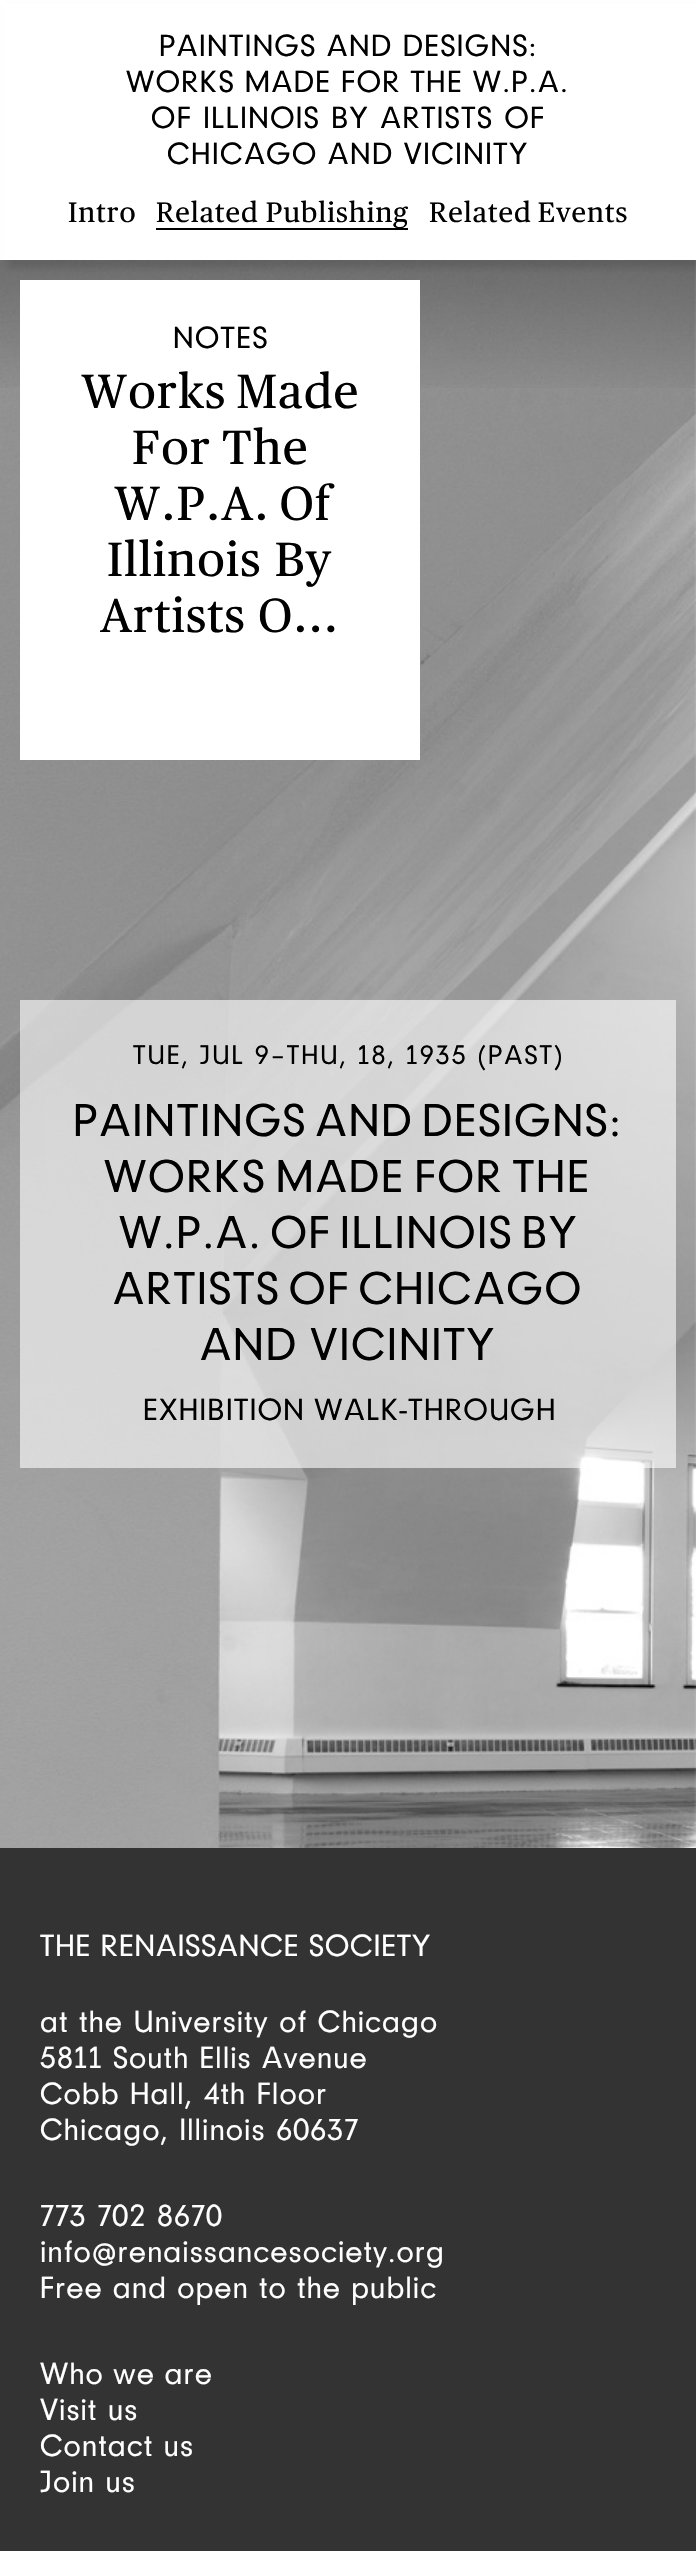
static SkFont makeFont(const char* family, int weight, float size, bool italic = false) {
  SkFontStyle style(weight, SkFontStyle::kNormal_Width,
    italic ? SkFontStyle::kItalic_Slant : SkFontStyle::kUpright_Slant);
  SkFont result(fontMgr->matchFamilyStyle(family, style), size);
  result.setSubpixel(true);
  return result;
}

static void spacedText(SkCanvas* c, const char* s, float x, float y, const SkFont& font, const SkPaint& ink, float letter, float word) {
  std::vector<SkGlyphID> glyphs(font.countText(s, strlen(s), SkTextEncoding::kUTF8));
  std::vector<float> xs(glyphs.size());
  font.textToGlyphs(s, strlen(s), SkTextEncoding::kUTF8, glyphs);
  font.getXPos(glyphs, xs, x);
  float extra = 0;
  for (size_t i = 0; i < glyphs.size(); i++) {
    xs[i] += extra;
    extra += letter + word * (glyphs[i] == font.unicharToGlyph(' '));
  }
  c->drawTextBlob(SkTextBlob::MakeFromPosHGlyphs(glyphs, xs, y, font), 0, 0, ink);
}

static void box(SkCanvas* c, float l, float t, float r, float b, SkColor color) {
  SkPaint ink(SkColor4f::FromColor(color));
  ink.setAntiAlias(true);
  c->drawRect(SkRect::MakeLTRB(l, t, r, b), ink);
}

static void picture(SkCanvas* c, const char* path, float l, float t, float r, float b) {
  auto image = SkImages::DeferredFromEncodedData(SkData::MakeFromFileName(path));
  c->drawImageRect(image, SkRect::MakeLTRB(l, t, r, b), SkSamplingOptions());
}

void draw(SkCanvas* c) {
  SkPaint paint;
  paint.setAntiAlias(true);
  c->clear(0xffffffff);
  picture(c, "img_01.png", 0, 260, 696, 1848);
  {
    const SkColor colors[] = {0xb3000000, 0x00000000};
    const float stops[] = {0, 1};
    const SkPoint ends[] = {{348, 0}, {348, 400}};
    paint.setShader(SkGradientShader::MakeLinear(ends, colors, stops, 2, SkTileMode::kClamp));
    paint.setAlpha(255);
  }
  c->drawRect(SkRect::MakeLTRB(0, 260, 696, 388), paint);
  paint.setShader(nullptr);
  paint.setColor(0x1a000000);
  paint.setMaskFilter(SkMaskFilter::MakeBlur(kNormal_SkBlurStyle, 3));
  c->drawRect(SkRect::MakeLTRB(8, 8, 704, 268), paint);
  paint.setMaskFilter(nullptr);
  box(c, 4, 4, 696, 260, 0xffffffff);
  SkFont face1 = makeFont("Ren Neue", 400, 32);
  paint.setColor(0xff000000);
  spacedText(c, "PAINTINGS AND DESIGNS:", 159, 56, face1, paint, 1.5f, -1);
  spacedText(c, "WORKS MADE FOR THE W.P.A.", 126, 92, face1, paint, 1.5f, -1.5f);
  spacedText(c, "OF ILLINOIS BY ARTISTS OF", 151, 128, face1, paint, 1.5f, 0);
  spacedText(c, "CHICAGO AND VICINITY", 167, 164, face1, paint, 1.5f, -1);
  SkFont face2 = makeFont("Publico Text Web", 400, 28);
  spacedText(c, "Intro", 68, 222, face2, paint, 1, 0);
  box(c, 156, 228, 408, 230, 0xff000000);
  spacedText(c, "Related Publishing", 156, 222, face2, paint, 1, -1);
  spacedText(c, "Related Events", 429, 222, face2, paint, 1, -2);
  box(c, 20, 280, 420, 760, 0xffffffff);
  spacedText(c, "NOTES", 173, 348, face1, paint, 1.5f, 0);
  SkFont face3 = makeFont("Publico Text Web", 400, 48);
  spacedText(c, "Works Made", 81, 408, face3, paint, 1, -3);
  spacedText(c, "For The", 132, 464, face3, paint, 1, -2);
  spacedText(c, "W.P.A. Of", 114, 520, face3, paint, 1, -3);
  spacedText(c, "Illinois By", 107, 576, face3, paint, 1, 0);
  spacedText(c, "Artists O...", 100, 632, face3, paint, 1, -1);
  box(c, 20, 1000, 676, 1468, 0x99ffffff);
  SkFont face4 = makeFont("Ren Neue", 400, 28);
  spacedText(c, "TUE, JUL 9–THU, 18, 1935 (PAST)", 133, 1064, face4, paint, 2, -0.5f);
  SkFont face5 = makeFont("Ren Neue", 400, 48);
  spacedText(c, "PAINTINGS AND DESIGNS:", 73, 1136, face5, paint, 2, -8);
  spacedText(c, "WORKS MADE FOR THE", 104, 1192, face5, paint, 2, -7);
  spacedText(c, "W.P.A. OF ILLINOIS BY", 119, 1248, face5, paint, 2, -8);
  spacedText(c, "ARTISTS OF CHICAGO", 113, 1304, face5, paint, 2, -8);
  spacedText(c, "AND VICINITY", 200, 1360, face5, paint, 2, -4);
  spacedText(c, "EXHIBITION WALK-THROUGH", 143, 1420, face1, paint, 1.5f, -2);
  box(c, 0, 1848, 696, 2551, 0xff333333);
  paint.setColor(0xffffffff);
  spacedText(c, "THE RENAISSANCE SOCIETY", 40, 1956, face1, paint, 1, -1);
  spacedText(c, "at the University of Chicago", 40, 2032, face1, paint, 1, 0);
  spacedText(c, "5811 South Ellis Avenue", 40, 2068, face1, paint, 1, -0.5f);
  spacedText(c, "Cobb Hall, 4th Floor", 40, 2104, face1, paint, 1, 0);
  spacedText(c, "Chicago, Illinois 60637", 40, 2140, face1, paint, 1, 0);
  spacedText(c, "773 702 8670", 40, 2226, face1, paint, 1, 0);
  spacedText(c, "info@renaissancesociety.org", 40, 2262, face1, paint, 1, 0);
  spacedText(c, "Free and open to the public", 40, 2298, face1, paint, 1, -0.5f);
  spacedText(c, "Who we are", 40, 2384, face1, paint, 1, -1);
  spacedText(c, "Visit us", 40, 2420, face1, paint, 1, 0);
  spacedText(c, "Contact us", 40, 2456, face1, paint, 1, 0);
  spacedText(c, "Join us", 40, 2492, face1, paint, 1, 0);
}
